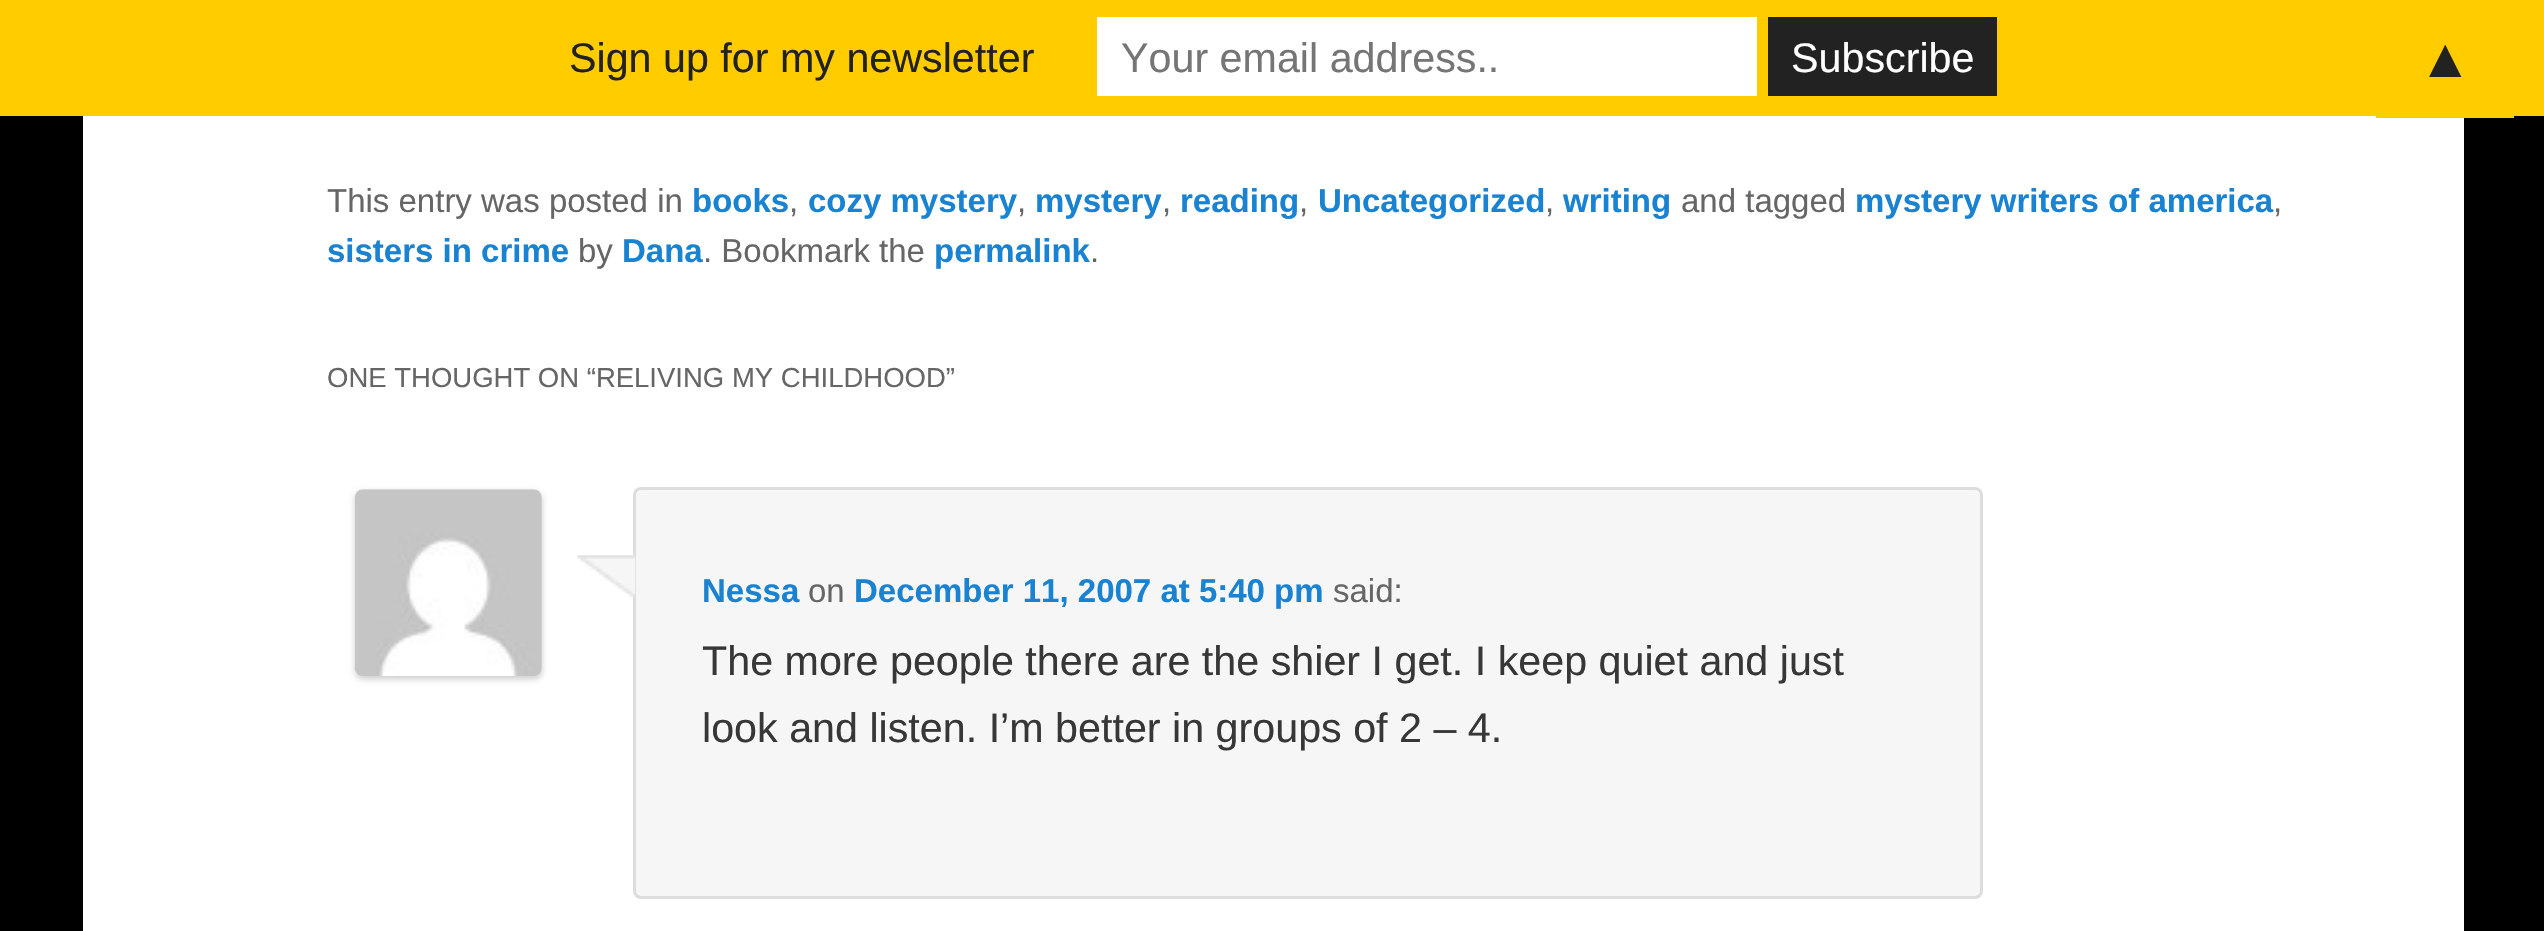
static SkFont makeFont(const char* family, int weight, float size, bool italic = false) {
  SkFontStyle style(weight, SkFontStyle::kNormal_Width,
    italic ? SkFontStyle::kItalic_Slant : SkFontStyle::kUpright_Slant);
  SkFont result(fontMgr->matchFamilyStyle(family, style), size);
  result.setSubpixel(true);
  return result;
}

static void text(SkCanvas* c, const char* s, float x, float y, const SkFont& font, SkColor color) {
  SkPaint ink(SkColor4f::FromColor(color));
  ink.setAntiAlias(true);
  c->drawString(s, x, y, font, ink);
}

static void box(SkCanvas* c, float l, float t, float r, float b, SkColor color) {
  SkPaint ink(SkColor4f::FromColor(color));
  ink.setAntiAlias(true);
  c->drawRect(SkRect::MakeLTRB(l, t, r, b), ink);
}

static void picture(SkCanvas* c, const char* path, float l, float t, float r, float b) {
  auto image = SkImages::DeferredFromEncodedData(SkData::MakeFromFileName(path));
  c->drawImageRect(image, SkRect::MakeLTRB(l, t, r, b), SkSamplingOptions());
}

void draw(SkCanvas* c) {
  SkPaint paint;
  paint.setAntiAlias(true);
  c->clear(0xff000000);
  box(c, 0, 0, 2544, 116, 0xffffcc00);
  SkFont face1 = makeFont("Liberation Sans", 400, 41.25f);
  text(c, "Sign up for my newsletter", 569, 72, face1, 0xff222222);
  box(c, 1097, 17, 1757, 96, 0xffffffff);
  text(c, "Your email address..", 1121, 72, face1, 0xff757575);
  box(c, 1768, 17, 1997, 96, 0xff222222);
  text(c, "Subscribe", 1791, 72, face1, 0xffffffff);
  box(c, 83, 116, 2464, 931, 0xffffffff);
  box(c, 2376, 116, 2514, 118, 0xffffcc00);
  SkFont face2 = makeFont("Liberation Sans", 400, 55);
  text(c, "▲", 2418, 77, face2, 0xff222222);
  SkFont face3 = makeFont("Liberation Sans", 400, 33);
  text(c, "This entry was posted in", 327, 212, face3, 0xff666666);
  SkFont face4 = makeFont("Liberation Sans", 700, 33);
  text(c, "books", 692, 212, face4, 0xff1982d1);
  text(c, ",", 789, 212, face3, 0xff666666);
  text(c, "cozy mystery", 808, 212, face4, 0xff1982d1);
  text(c, ",", 1017, 212, face3, 0xff666666);
  text(c, "mystery", 1035, 212, face4, 0xff1982d1);
  text(c, ",", 1162, 212, face3, 0xff666666);
  text(c, "reading", 1180, 212, face4, 0xff1982d1);
  text(c, ",", 1299, 212, face3, 0xff666666);
  text(c, "Uncategorized", 1318, 212, face4, 0xff1982d1);
  text(c, ",", 1545, 212, face3, 0xff666666);
  text(c, "writing", 1563, 212, face4, 0xff1982d1);
  text(c, "and tagged", 1681, 212, face3, 0xff666666);
  text(c, "mystery writers of america", 1855, 212, face4, 0xff1982d1);
  text(c, ",", 2273, 212, face3, 0xff666666);
  text(c, "sisters in crime", 327, 262, face4, 0xff1982d1);
  text(c, "by", 578, 262, face3, 0xff666666);
  text(c, "Dana", 622, 262, face4, 0xff1982d1);
  text(c, ". Bookmark the", 703, 262, face3, 0xff666666);
  text(c, "permalink", 934, 262, face4, 0xff1982d1);
  text(c, ".", 1090, 262, face3, 0xff666666);
  SkFont face5 = makeFont("Liberation Sans", 400, 27.5f);
  text(c, "ONE THOUGHT ON “RELIVING MY CHILDHOOD”", 327, 387, face5, 0xff666666);
  paint.setColor(0xfff6f6f6);
  c->drawRoundRect(SkRect::MakeLTRB(634.5f, 488.5f, 1981.5f, 897.5f), 6.5f, 6.5f, paint);
  paint.setStyle(SkPaint::kStroke_Style);
  paint.setStrokeWidth(3);
  paint.setColor(0xffdddddd);
  c->drawRoundRect(SkRect::MakeLTRB(634.5f, 488.5f, 1981.5f, 897.5f), 6.5f, 6.5f, paint);
  picture(c, "img_01.png", 577, 555, 636, 599);
  paint.setStyle(SkPaint::kFill_Style);
  paint.setColor(0xffcccccc);
  paint.setMaskFilter(SkMaskFilter::MakeBlur(kNormal_SkBlurStyle, 3));
  c->drawRoundRect(SkRect::MakeLTRB(355, 492, 542, 679), 8, 8, paint);
  paint.setMaskFilter(nullptr);
  picture(c, "img_02.png", 355, 489, 542, 676);
  text(c, "Nessa", 702, 602, face4, 0xff1982d1);
  text(c, "on", 808, 602, face3, 0xff666666);
  text(c, "December 11, 2007 at 5:40 pm", 854, 602, face4, 0xff1982d1);
  text(c, "said:", 1333, 602, face3, 0xff666666);
  text(c, "The more people there are the shier I get. I keep quiet and just", 702, 675, face1, 0xff373737);
  text(c, "look and listen. I’m better in groups of 2 – 4.", 702, 742, face1, 0xff373737);
}
